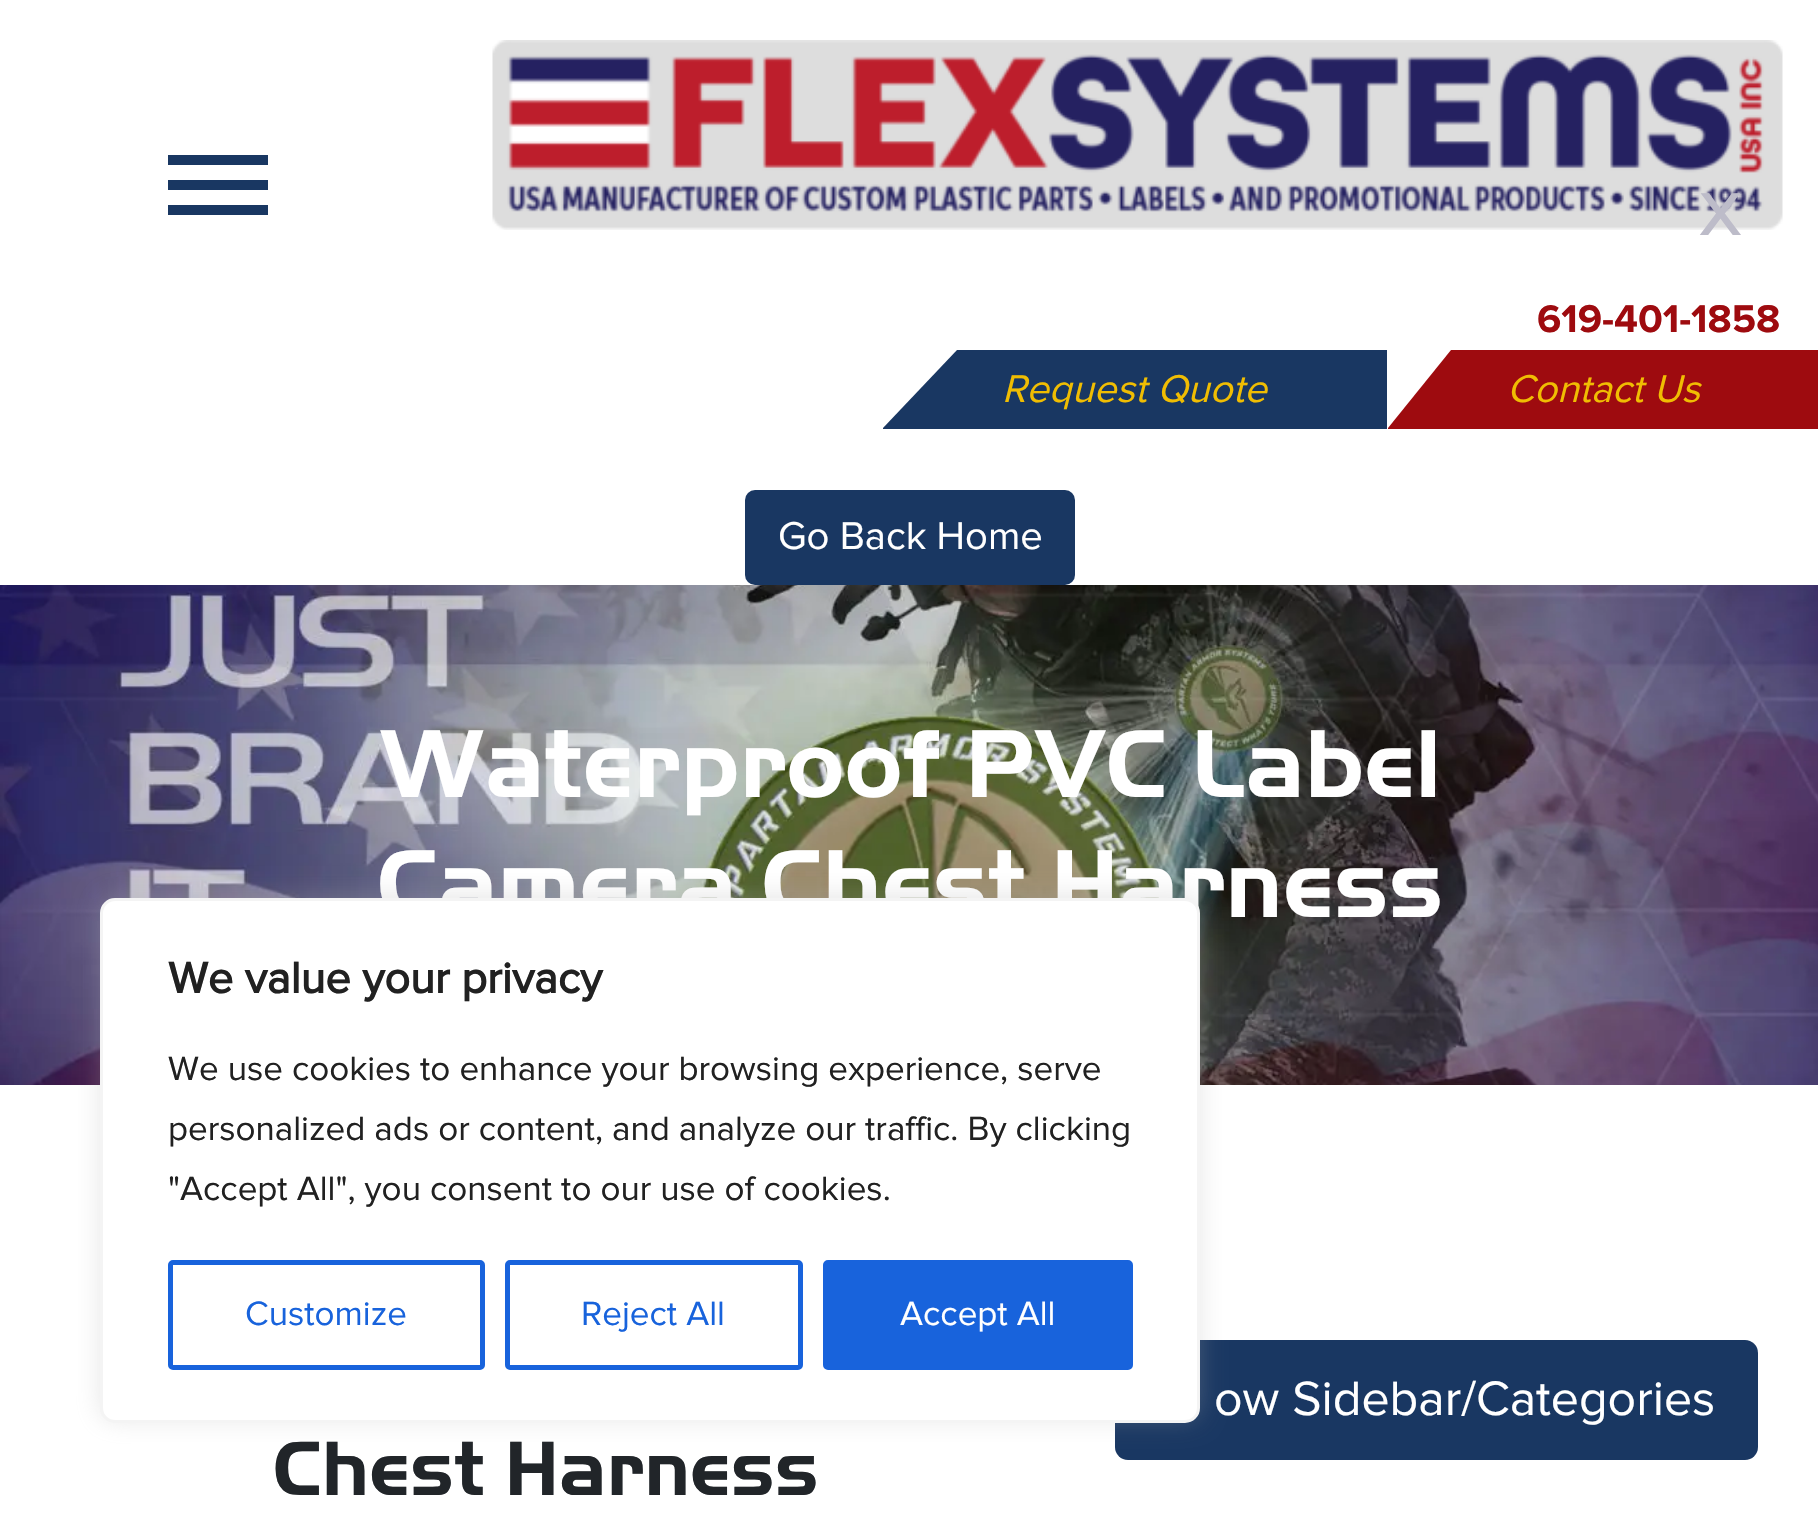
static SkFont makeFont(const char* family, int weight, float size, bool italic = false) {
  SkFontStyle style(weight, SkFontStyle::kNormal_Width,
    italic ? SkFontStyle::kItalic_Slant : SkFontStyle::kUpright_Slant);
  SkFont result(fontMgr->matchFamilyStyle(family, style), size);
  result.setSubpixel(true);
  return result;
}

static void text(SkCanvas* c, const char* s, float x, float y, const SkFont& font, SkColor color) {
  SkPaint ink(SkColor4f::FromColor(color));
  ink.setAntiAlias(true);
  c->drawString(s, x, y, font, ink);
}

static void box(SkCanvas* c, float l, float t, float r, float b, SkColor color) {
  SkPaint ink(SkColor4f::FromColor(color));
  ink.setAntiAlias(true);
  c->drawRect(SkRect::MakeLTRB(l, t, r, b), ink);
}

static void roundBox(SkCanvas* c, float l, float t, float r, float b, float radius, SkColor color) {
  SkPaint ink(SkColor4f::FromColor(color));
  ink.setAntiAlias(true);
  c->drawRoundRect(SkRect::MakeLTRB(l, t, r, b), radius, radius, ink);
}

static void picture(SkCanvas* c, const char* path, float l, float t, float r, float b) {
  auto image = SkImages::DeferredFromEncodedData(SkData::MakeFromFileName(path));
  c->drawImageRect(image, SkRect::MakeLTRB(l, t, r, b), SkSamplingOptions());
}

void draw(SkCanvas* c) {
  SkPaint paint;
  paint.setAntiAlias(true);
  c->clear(0xffffffff);
  picture(c, "img_01.png", 492, 40, 1783, 230);
  SkFont face1 = makeFont("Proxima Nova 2", 700, 60);
  text(c, "X", 1700, 235, face1, 0xffbdbcc9);
  box(c, 168, 155, 268, 165, 0xff193762);
  box(c, 168, 180, 268, 190, 0xff193762);
  box(c, 168, 205, 268, 215, 0xff193762);
  SkFont face2 = makeFont("Proxima Nova", 700, 40);
  text(c, "619-401-1858", 1537, 332, face2, 0xff9e0b0f);
  paint.setColor(0xff193762);
  c->drawPath(SkPathBuilder().moveTo(883, 428).lineTo(957, 350).lineTo(1387, 350).lineTo(1387, 429).lineTo(883, 429).close().detach(), paint);
  SkFont face3 = makeFont("Proxima Nova", 400, 40, true);
  text(c, "Request Quote", 1002, 402, face3, 0xfff0bd02);
  paint.setColor(0xff9e0b0f);
  c->drawPath(SkPathBuilder().moveTo(1388, 428).lineTo(1451, 350).lineTo(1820, 350).lineTo(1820, 429).lineTo(1388, 429).close().detach(), paint);
  text(c, "Contact Us", 1507, 402, face3, 0xfff0bd02);
  roundBox(c, 745, 490, 1075, 585, 10, 0xff193762);
  SkFont face4 = makeFont("Proxima Nova", 400, 40);
  text(c, "Go Back Home", 778, 549, face4, 0xffffffff);
  picture(c, "img_02.png", 0, 585, 1818, 1085);
  SkFont face5 = makeFont("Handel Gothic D", 700, 100);
  text(c, "Waterproof PVC Label", 379, 797, face5, 0xffffffff);
  text(c, "Camera Chest Harness", 377, 917, face5, 0xffffffff);
  roundBox(c, 1115, 1340, 1758, 1460, 13, 0xff193762);
  SkFont face6 = makeFont("Proxima Nova", 400, 50);
  text(c, "ow Sidebar/Categories", 1214, 1415, face6, 0xffffffff);
  SkFont face7 = makeFont("Handel Gothic D", 700, 80);
  text(c, "Chest Harness", 273, 1495, face7, 0xff212529);
  paint.setColor(0x4dacabab);
  paint.setMaskFilter(SkMaskFilter::MakeBlur(kNormal_SkBlurStyle, 12.5f));
  c->drawRoundRect(SkRect::MakeLTRB(100, 895, 1200, 1420), 15, 15, paint);
  paint.setMaskFilter(nullptr);
  paint.setColor(0xffffffff);
  c->drawRoundRect(SkRect::MakeLTRB(101.5f, 899.5f, 1198.5f, 1421.5f), 13.5f, 13.5f, paint);
  paint.setStyle(SkPaint::kStroke_Style);
  paint.setStrokeWidth(3);
  paint.setColor(0xfff4f4f4);
  c->drawRoundRect(SkRect::MakeLTRB(101.5f, 899.5f, 1198.5f, 1421.5f), 13.5f, 13.5f, paint);
  SkFont face8 = makeFont("Proxima Nova 2", 700, 45);
  text(c, "We value your privacy", 168, 993, face8, 0xff212121);
  SkFont face9 = makeFont("Proxima Nova", 400, 35);
  text(c, "We use cookies to enhance your browsing experience, serve", 168, 1080, face9, 0xff212121);
  text(c, "personalized ads or content, and analyze our traffic. By clicking", 168, 1140, face9, 0xff212121);
  text(c, "\"Accept All\", you consent to our use of cookies.", 168, 1200, face9, 0xff212121);
  paint.setStrokeWidth(5);
  paint.setColor(0xff1863dc);
  c->drawRoundRect(SkRect::MakeLTRB(170.5f, 1262.5f, 482.5f, 1367.5f), 2.5f, 2.5f, paint);
  text(c, "Customize", 245, 1325, face9, 0xff1863dc);
  c->drawRoundRect(SkRect::MakeLTRB(507.5f, 1262.5f, 800.5f, 1367.5f), 2.5f, 2.5f, paint);
  text(c, "Reject All", 581, 1325, face9, 0xff1863dc);
  paint.setStyle(SkPaint::kFill_Style);
  c->drawRoundRect(SkRect::MakeLTRB(825.5f, 1262.5f, 1130.5f, 1367.5f), 2.5f, 2.5f, paint);
  paint.setStyle(SkPaint::kStroke_Style);
  c->drawRoundRect(SkRect::MakeLTRB(825.5f, 1262.5f, 1130.5f, 1367.5f), 2.5f, 2.5f, paint);
  text(c, "Accept All", 900, 1325, face9, 0xffffffff);
}
